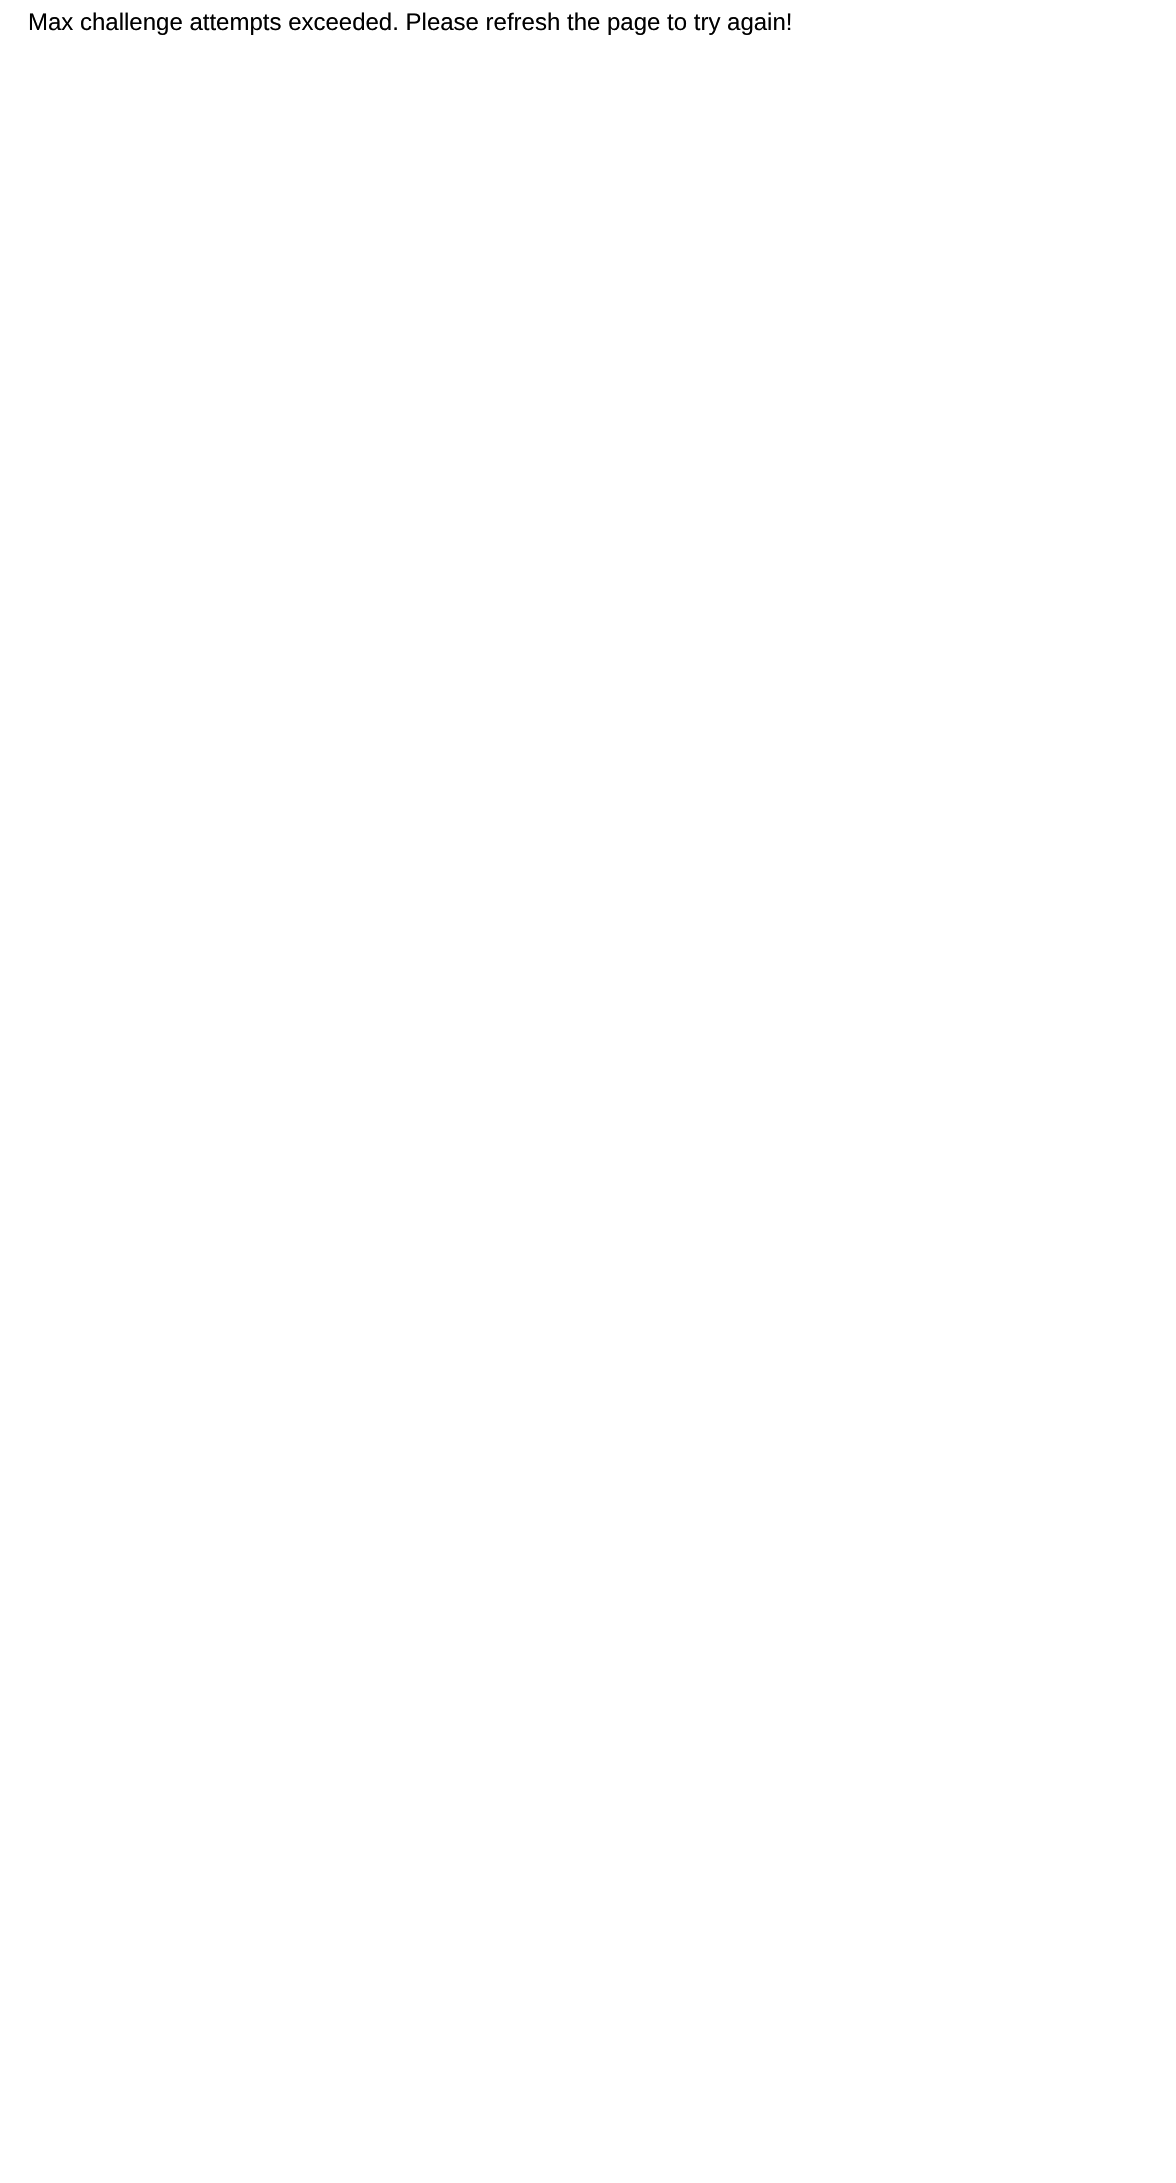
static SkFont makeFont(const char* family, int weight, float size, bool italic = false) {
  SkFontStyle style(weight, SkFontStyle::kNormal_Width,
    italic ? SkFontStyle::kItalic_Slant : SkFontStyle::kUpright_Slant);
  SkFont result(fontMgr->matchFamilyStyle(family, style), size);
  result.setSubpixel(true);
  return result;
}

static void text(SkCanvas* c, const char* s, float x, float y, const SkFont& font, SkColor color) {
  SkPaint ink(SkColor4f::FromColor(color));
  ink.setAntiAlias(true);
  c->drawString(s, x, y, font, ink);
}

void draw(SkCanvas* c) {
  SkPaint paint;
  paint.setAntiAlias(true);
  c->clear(0xffffffff);
  SkFont face1 = makeFont("Liberation Sans", 400, 24);
  text(c, "Max challenge attempts exceeded. Please refresh the page to try again!", 28, 30, face1, 0xff000000);
}
